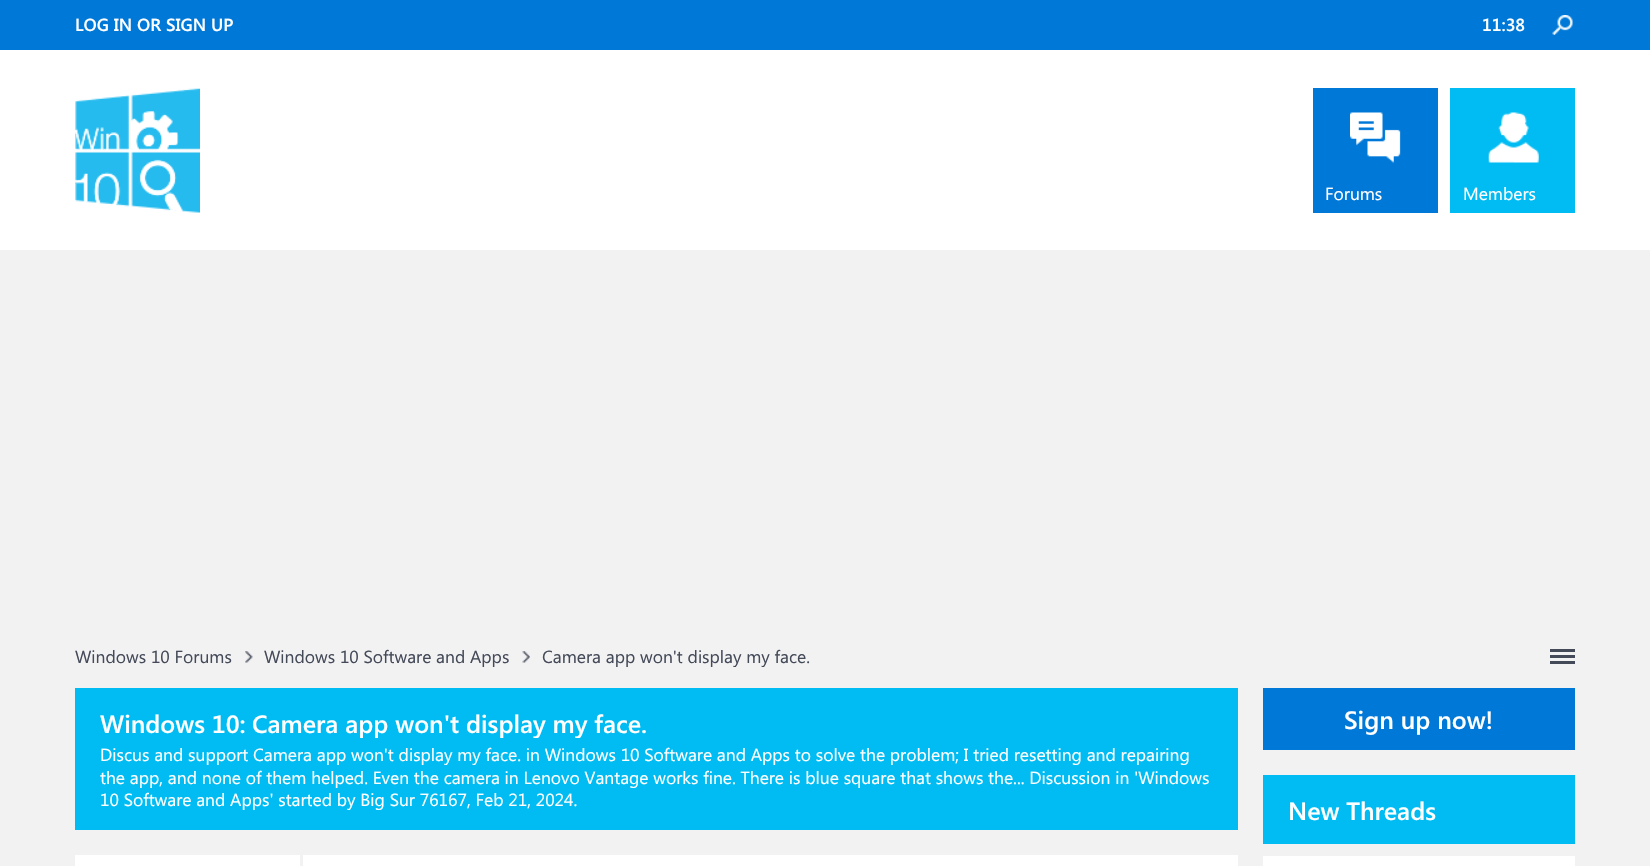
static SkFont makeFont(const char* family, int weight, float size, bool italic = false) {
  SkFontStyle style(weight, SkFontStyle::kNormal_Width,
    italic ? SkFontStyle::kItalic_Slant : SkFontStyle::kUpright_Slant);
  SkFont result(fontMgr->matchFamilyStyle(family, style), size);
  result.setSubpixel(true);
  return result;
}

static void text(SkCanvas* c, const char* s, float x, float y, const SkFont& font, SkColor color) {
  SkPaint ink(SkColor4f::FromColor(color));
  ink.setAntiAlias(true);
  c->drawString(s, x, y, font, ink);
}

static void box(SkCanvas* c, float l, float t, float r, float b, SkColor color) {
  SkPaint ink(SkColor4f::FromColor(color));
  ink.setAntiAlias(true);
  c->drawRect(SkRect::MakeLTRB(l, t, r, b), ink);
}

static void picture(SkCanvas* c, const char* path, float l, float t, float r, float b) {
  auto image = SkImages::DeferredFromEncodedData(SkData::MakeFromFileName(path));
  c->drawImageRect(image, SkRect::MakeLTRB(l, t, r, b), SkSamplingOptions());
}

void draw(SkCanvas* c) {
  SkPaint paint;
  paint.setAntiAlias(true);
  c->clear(0xfff2f2f3);
  box(c, 0, 0, 1650, 50, 0xff0078d7);
  SkFont face1 = makeFont("Segoe UI", 600, 17.5f);
  text(c, "LOG IN OR SIGN UP", 75, 31, face1, 0xffffffff);
  text(c, "11:38", 1482, 31, face1, 0xffffffff);
  picture(c, "img_01.png", 1552, 15, 1573, 35);
  box(c, 0, 50, 1650, 250, 0xffffffff);
  picture(c, "img_02.png", 75, 88, 200, 213);
  box(c, 1313, 88, 1438, 213, 0xff0078d7);
  picture(c, "img_03.png", 1350, 112, 1401, 163);
  SkFont face2 = makeFont("Segoe UI", 400, 17.5f);
  text(c, "Forums", 1325, 200, face2, 0xffffffff);
  box(c, 1450, 88, 1575, 213, 0xff01bcf3);
  picture(c, "img_04.png", 1488, 112, 1539, 163);
  text(c, "Members", 1463, 200, face2, 0xffffffff);
  text(c, "Windows 10 Forums", 75, 663, face2, 0xff444a58);
  picture(c, "img_05.png", 245, 651, 253, 663);
  text(c, "Windows 10 Software and Apps", 264, 663, face2, 0xff444a58);
  picture(c, "img_06.png", 522, 651, 530, 663);
  text(c, "Camera app won't display my face.", 542, 663, face2, 0xff444a58);
  box(c, 1550, 649, 1575, 652, 0xff444a58);
  box(c, 1550, 655, 1575, 658, 0xff444a58);
  box(c, 1550, 661, 1575, 664, 0xff444a58);
  box(c, 75, 688, 1238, 830, 0xff01bcf3);
  SkFont face3 = makeFont("Segoe UI", 600, 25);
  text(c, "Windows 10:", 100, 733, face3, 0xffffffff);
  c->save();
  c->clipRect(SkRect::MakeLTRB(100, 706, 1213, 738));
  text(c, "Camera app won't display my face.", 252, 733, face3, 0xffffffff);
  c->restore();
  text(c, "Discus and support Camera app won't display my face. in Windows 10 Software and Apps to solve the problem; I tried resetting and repairing", 100, 761, face2, 0xffffffff);
  text(c, "the app, and none of them helped. Even the camera in Lenovo Vantage works fine. There is blue square that shows the... Discussion in 'Windows", 100, 784, face2, 0xffffffff);
  text(c, "10 Software and Apps' started by Big Sur 76167, Feb 21, 2024.", 100, 806, face2, 0xffffffff);
  box(c, 75, 855, 1238, 866, 0xffffffff);
  box(c, 300, 855, 303, 866, 0xfff2f2f3);
  box(c, 1263, 688, 1575, 750, 0xff0078d7);
  text(c, "Sign up now!", 1344, 729, face3, 0xffffffff);
  box(c, 1263, 775, 1575, 844, 0xff01bcf3);
  text(c, "New Threads", 1288, 820, face3, 0xffffffff);
  box(c, 1263, 856, 1575, 866, 0xffffffff);
}
